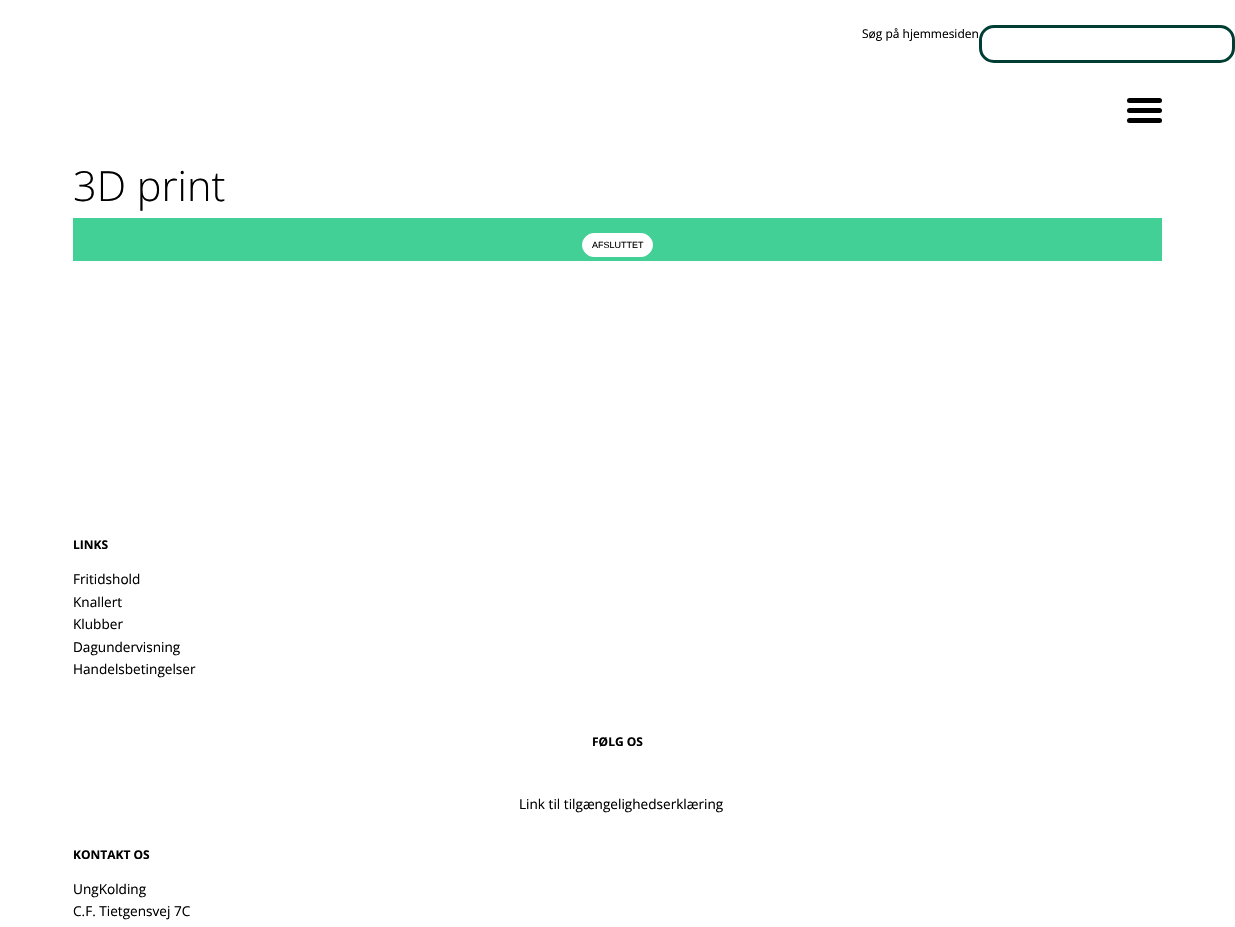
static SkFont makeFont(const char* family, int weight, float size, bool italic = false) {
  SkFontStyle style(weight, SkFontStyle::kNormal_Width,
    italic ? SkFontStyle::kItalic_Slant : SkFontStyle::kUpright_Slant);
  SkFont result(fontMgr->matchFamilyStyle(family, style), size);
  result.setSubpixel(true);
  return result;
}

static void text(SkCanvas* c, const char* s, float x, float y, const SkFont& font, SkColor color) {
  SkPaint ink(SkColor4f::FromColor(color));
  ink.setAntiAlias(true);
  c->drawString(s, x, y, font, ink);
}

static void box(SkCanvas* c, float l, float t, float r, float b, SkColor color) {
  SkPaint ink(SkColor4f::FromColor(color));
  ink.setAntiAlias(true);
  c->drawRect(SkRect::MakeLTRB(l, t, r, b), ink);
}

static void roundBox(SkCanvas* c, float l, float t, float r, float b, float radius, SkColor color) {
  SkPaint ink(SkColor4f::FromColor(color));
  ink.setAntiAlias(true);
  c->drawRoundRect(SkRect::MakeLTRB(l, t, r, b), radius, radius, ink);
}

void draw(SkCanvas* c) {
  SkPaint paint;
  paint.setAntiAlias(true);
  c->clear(0xffffffff);
  SkFont face1 = makeFont("Open Sans", 400, 12);
  text(c, "Søg på hjemmesiden", 862, 38, face1, 0xff000000);
  paint.setStyle(SkPaint::kStroke_Style);
  paint.setStrokeWidth(3);
  paint.setColor(0xff003e34);
  c->drawRoundRect(SkRect::MakeLTRB(980.5f, 26.5f, 1233.5f, 61.5f), 13.5f, 13.5f, paint);
  roundBox(c, 1127, 98, 1162, 103, 2.5f, 0xff000000);
  roundBox(c, 1127, 108, 1162, 113, 2.5f, 0xff000000);
  roundBox(c, 1127, 118, 1162, 123, 2.5f, 0xff000000);
  SkFont face2 = makeFont("Open Sans", 300, 41.5f);
  text(c, "3D print", 73, 201, face2, 0xff000000);
  box(c, 73, 218, 1162, 261, 0xff43d096);
  paint.setStyle(SkPaint::kFill_Style);
  paint.setColor(0xffffffff);
  c->drawRoundRect(SkRect::MakeLTRB(582.5f, 233.5f, 652.5f, 256.5f), 11.5f, 11.5f, paint);
  paint.setStyle(SkPaint::kStroke_Style);
  paint.setStrokeWidth(1);
  c->drawRoundRect(SkRect::MakeLTRB(582.5f, 233.5f, 652.5f, 256.5f), 11.5f, 11.5f, paint);
  SkFont face3 = makeFont("Liberation Sans", 400, 9);
  text(c, "AFSLUTTET", 592, 248, face3, 0xff000000);
  SkFont face4 = makeFont("Open Sans", 700, 12);
  text(c, "LINKS", 73, 549, face4, 0xff000000);
  SkFont face5 = makeFont("Open Sans", 400, 13.6f);
  text(c, "Fritidshold", 73, 584, face5, 0xff000000);
  text(c, "Knallert", 73, 607, face5, 0xff000000);
  text(c, "Klubber", 73, 629, face5, 0xff000000);
  text(c, "Dagundervisning", 73, 652, face5, 0xff000000);
  text(c, "Handelsbetingelser", 73, 674, face5, 0xff000000);
  text(c, "FØLG OS", 592, 746, face4, 0xff000000);
  text(c, "Link til tilgængelighedserklæring", 519, 809, face5, 0xff000000);
  text(c, "KONTAKT OS", 73, 859, face4, 0xff000000);
  text(c, "UngKolding", 73, 894, face5, 0xff000000);
  text(c, "C.F. Tietgensvej 7C", 73, 916, face5, 0xff000000);
}
